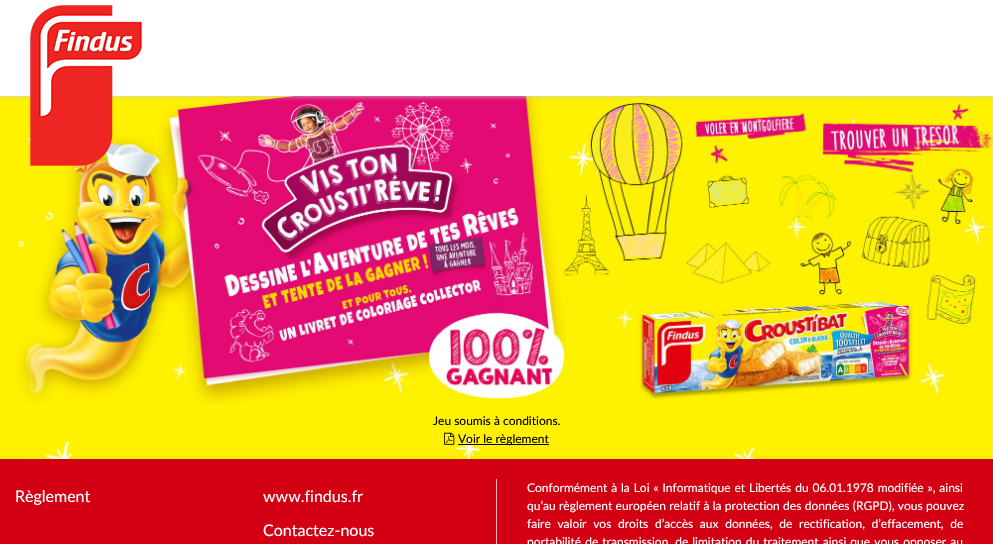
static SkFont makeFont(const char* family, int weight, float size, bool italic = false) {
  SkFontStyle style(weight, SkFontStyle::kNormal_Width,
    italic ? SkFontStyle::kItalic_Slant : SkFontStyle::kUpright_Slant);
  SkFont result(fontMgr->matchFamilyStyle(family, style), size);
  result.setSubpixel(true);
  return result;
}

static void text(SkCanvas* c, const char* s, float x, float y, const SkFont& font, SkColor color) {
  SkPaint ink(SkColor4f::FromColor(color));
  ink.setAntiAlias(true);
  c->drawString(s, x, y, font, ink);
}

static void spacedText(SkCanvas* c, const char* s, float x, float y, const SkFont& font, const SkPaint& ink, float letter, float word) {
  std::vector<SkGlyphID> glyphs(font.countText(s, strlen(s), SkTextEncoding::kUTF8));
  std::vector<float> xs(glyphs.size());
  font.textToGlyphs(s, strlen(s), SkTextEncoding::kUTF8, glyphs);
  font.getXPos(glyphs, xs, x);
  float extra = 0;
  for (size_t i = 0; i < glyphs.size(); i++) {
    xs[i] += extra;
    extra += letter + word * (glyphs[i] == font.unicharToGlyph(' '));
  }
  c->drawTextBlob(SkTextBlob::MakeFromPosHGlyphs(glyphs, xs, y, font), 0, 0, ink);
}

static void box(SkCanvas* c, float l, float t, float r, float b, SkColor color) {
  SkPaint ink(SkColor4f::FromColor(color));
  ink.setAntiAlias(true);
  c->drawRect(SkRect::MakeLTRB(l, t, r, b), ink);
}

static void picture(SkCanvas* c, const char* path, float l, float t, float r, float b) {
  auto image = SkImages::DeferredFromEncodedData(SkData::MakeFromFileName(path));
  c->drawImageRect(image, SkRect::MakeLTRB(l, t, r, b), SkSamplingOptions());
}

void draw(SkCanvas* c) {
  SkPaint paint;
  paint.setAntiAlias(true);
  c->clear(0xffd30013);
  box(c, 0, 0, 993, 96, 0xffffffff);
  picture(c, "img_02.png", 0, 96, 993, 459);
  picture(c, "img_03.png", 14, 96, 993, 404);
  c->save();
  c->clipRect(SkRect::MakeLTRB(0, 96, 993, 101));
  paint.setColor(0xffcccccc);
  paint.setMaskFilter(SkMaskFilter::MakeBlur(kNormal_SkBlurStyle, 2.5f));
  c->drawRect(SkRect::MakeLTRB(0, 0, 993, 96), paint);
  paint.setMaskFilter(nullptr);
  c->restore();
  picture(c, "img_01.png", 30, 5, 142, 166);
  SkFont face1 = makeFont("Lato", 400, 12);
  text(c, "Jeu soumis à conditions.", 433, 425, face1, 0xff000000);
  picture(c, "img_04.png", 444, 432, 455, 445);
  box(c, 458, 444, 549, 445, 0xff000000);
  text(c, "Voir le règlement", 458, 443, face1, 0xff000000);
  box(c, 496, 479, 497, 544, 0xfff2b3b8);
  SkFont face2 = makeFont("Lato", 400, 16);
  text(c, "Règlement", 15, 502, face2, 0xffffffff);
  text(c, "www.findus.fr", 263, 502, face2, 0xffffffff);
  text(c, "Contactez-nous", 263, 536, face2, 0xffffffff);
  paint.setColor(0xffffffff);
  spacedText(c, "Conformément à la Loi « Informatique et Libertés du 06.01.1978 modifiée », ainsi", 527, 492, face1, paint, 0, 0.8f);
  spacedText(c, "qu’au règlement européen relatif à la protection des données (RGPD), vous pouvez", 527, 510, face1, paint, 0, 0.25f);
  spacedText(c, "faire valoir vos droits d’accès aux données, de rectification, d’effacement, de", 527, 528, face1, paint, 0, 3.6f);
  spacedText(c, "portabilité de transmission, de limitation du traitement ainsi que vous opposer au", 527, 546, face1, paint, 0, 1);
}
